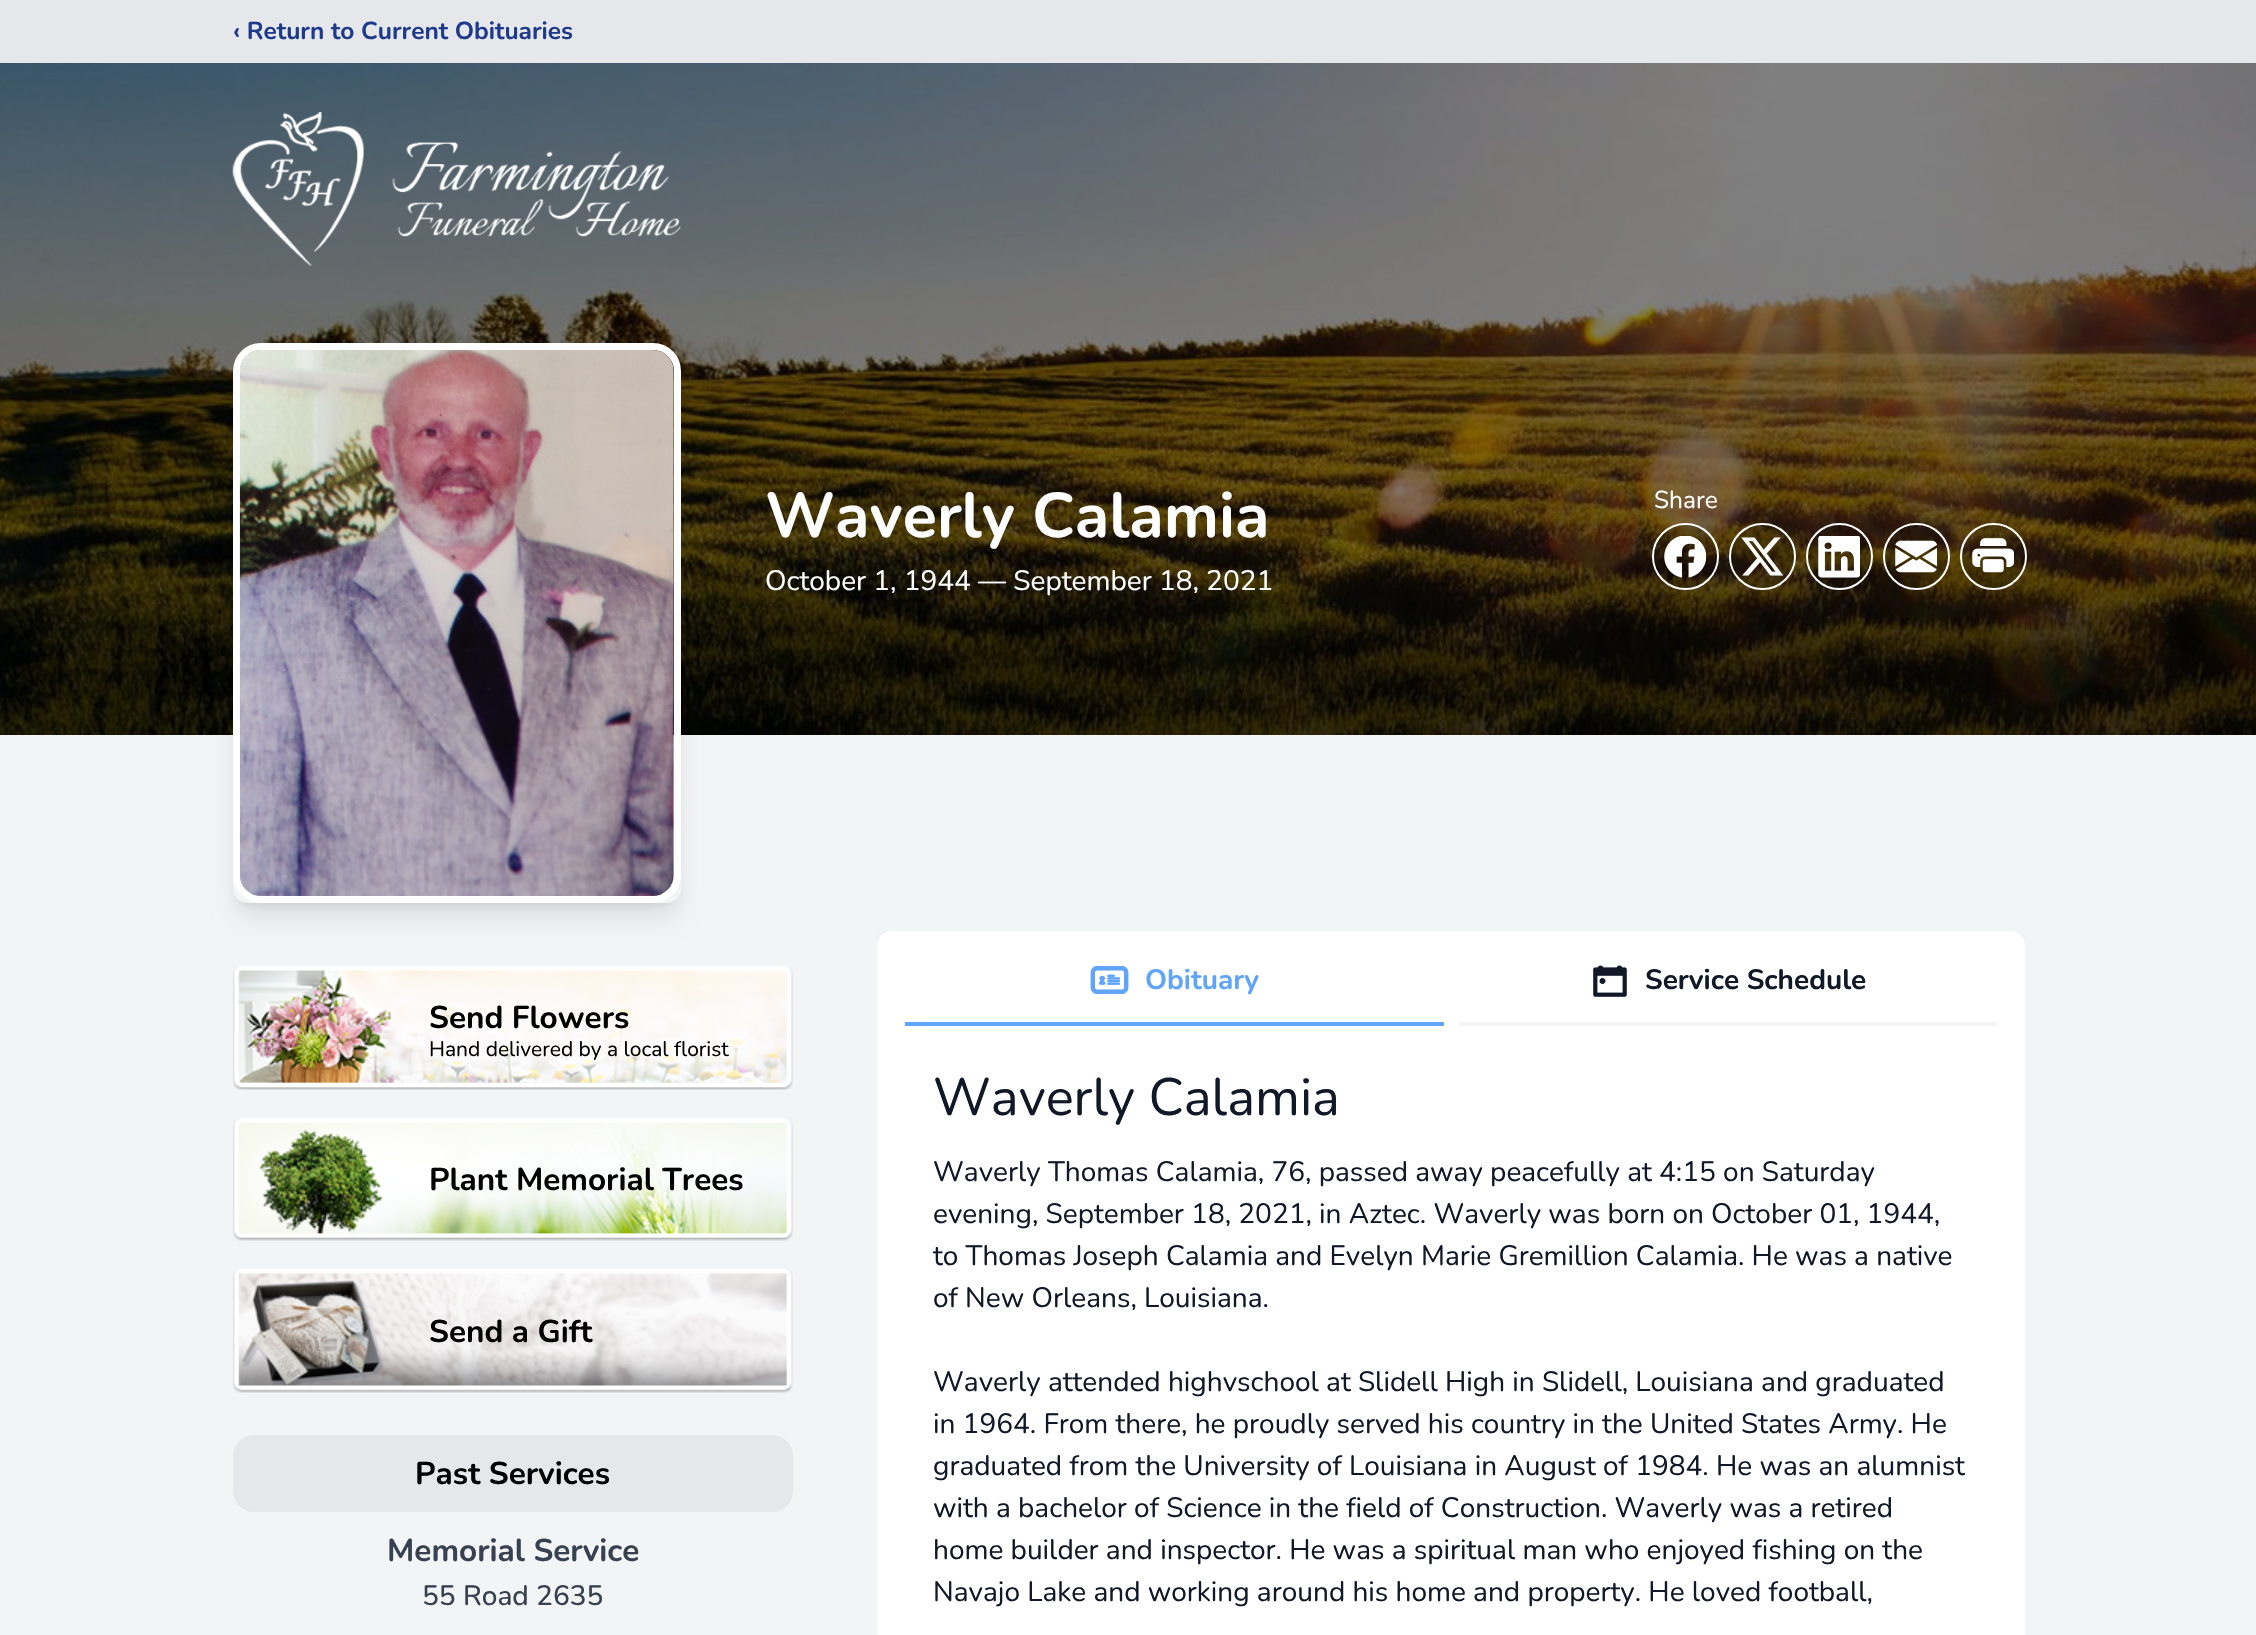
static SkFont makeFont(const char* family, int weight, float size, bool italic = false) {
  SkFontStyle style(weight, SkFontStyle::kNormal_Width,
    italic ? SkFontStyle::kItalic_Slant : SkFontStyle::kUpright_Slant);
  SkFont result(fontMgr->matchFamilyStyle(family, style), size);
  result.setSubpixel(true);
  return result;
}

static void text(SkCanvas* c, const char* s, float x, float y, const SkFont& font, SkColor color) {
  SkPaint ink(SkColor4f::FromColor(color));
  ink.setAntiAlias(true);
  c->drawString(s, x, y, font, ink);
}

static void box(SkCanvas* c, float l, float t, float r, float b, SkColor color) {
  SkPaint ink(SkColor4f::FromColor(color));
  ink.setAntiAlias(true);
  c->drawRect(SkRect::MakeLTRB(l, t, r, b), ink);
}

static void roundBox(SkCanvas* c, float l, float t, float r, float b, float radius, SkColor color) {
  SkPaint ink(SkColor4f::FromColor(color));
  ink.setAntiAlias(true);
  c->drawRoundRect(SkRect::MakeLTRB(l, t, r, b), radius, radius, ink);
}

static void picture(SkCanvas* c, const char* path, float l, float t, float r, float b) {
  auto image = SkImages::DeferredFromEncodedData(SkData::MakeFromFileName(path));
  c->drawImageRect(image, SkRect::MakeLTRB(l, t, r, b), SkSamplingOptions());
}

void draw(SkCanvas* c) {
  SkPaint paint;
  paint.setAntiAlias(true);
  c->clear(0xfff3f4f6);
  box(c, 0, 0, 2256, 63, 0xffe5e7eb);
  SkFont face1 = makeFont("Nunito", 700, 24.5f);
  text(c, "‹ Return to Current Obituaries", 233, 39, face1, 0xff1e3a8a);
  picture(c, "img_01.png", 0, 63, 2256, 735);
  picture(c, "img_02.png", 232, 112, 681, 266);
  c->save();
  c->clipPath(SkPathBuilder(SkPathFillType::kEvenOdd).moveTo(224, 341).lineTo(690, 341).lineTo(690, 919).lineTo(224, 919).close().moveTo(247, 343).lineTo(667, 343).cubicTo(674.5f, 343, 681, 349.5f, 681, 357).lineTo(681, 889).cubicTo(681, 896.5f, 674.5f, 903, 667, 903).lineTo(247, 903).cubicTo(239.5f, 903, 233, 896.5f, 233, 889).lineTo(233, 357).cubicTo(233, 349.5f, 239.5f, 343, 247, 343).close().detach(), true);
  paint.setColor(0x1a000000);
  paint.setMaskFilter(SkMaskFilter::MakeBlur(kNormal_SkBlurStyle, 5));
  c->drawRoundRect(SkRect::MakeLTRB(240, 357, 674, 903), 7, 7, paint);
  paint.setMaskFilter(nullptr);
  c->restore();
  c->save();
  c->clipPath(SkPathBuilder(SkPathFillType::kEvenOdd).moveTo(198, 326).lineTo(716, 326).lineTo(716, 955).lineTo(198, 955).close().moveTo(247, 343).lineTo(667, 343).cubicTo(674.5f, 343, 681, 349.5f, 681, 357).lineTo(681, 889).cubicTo(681, 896.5f, 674.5f, 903, 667, 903).lineTo(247, 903).cubicTo(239.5f, 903, 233, 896.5f, 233, 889).lineTo(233, 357).cubicTo(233, 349.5f, 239.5f, 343, 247, 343).close().detach(), true);
  paint.setMaskFilter(SkMaskFilter::MakeBlur(kNormal_SkBlurStyle, 13));
  c->drawRoundRect(SkRect::MakeLTRB(238, 366, 676, 915), 9, 9, paint);
  paint.setMaskFilter(nullptr);
  c->restore();
  paint.setStyle(SkPaint::kStroke_Style);
  paint.setStrokeWidth(7);
  paint.setColor(0xffffffff);
  c->drawRoundRect(SkRect::MakeLTRB(236.5f, 346.5f, 677.5f, 899.5f), 24.5f, 24.5f, paint);
  picture(c, "img_03.png", 239, 350, 674, 896);
  SkFont face2 = makeFont("Nunito", 700, 63);
  text(c, "Waverly Calamia", 765, 537, face2, 0xffffffff);
  SkFont face3 = makeFont("Nunito", 400, 28);
  text(c, "October 1, 1944 — September 18, 2021", 765, 590, face3, 0xffffffff);
  SkFont face4 = makeFont("Nunito", 400, 24.5f);
  text(c, "Share", 1654, 508, face4, 0xffffffff);
  paint.setStrokeWidth(2);
  c->drawCircle(1685.5f, 556.5f, 32.5f, paint);
  paint.setStyle(SkPaint::kFill_Style);
  paint.setColor(0x33000000);
  c->drawCircle(1685.5f, 556.5f, 31.5f, paint);
  picture(c, "img_04.png", 1664, 536, 1706, 578);
  paint.setStyle(SkPaint::kStroke_Style);
  paint.setColor(0xffffffff);
  c->drawCircle(1762.5f, 556.5f, 32.5f, paint);
  paint.setStyle(SkPaint::kFill_Style);
  paint.setColor(0x33000000);
  c->drawCircle(1762.5f, 556.5f, 31.5f, paint);
  picture(c, "img_05.png", 1741, 537, 1783, 576);
  paint.setStyle(SkPaint::kStroke_Style);
  paint.setColor(0xffffffff);
  c->drawCircle(1839.5f, 556.5f, 32.5f, paint);
  paint.setStyle(SkPaint::kFill_Style);
  paint.setColor(0x33000000);
  c->drawCircle(1839.5f, 556.5f, 31.5f, paint);
  picture(c, "img_06.png", 1818, 536, 1860, 578);
  paint.setStyle(SkPaint::kStroke_Style);
  paint.setColor(0xffffffff);
  c->drawCircle(1916.5f, 556.5f, 32.5f, paint);
  paint.setStyle(SkPaint::kFill_Style);
  paint.setColor(0x33000000);
  c->drawCircle(1916.5f, 556.5f, 31.5f, paint);
  picture(c, "img_07.png", 1895, 540, 1937, 573);
  paint.setStyle(SkPaint::kStroke_Style);
  paint.setColor(0xffffffff);
  c->drawCircle(1993.5f, 556.5f, 32.5f, paint);
  paint.setStyle(SkPaint::kFill_Style);
  paint.setColor(0x33000000);
  c->drawCircle(1993.5f, 556.5f, 31.5f, paint);
  picture(c, "img_08.png", 1972, 538, 2014, 573);
  picture(c, "img_09.png", 233, 966, 793, 1090);
  SkFont face5 = makeFont("Nunito", 700, 31.5f);
  text(c, "Send Flowers", 429, 1028, face5, 0xff000000);
  SkFont face6 = makeFont("Nunito", 400, 21);
  text(c, "Hand delivered by a local florist", 429, 1056, face6, 0xff000000);
  picture(c, "img_10.png", 233, 1118, 793, 1241);
  text(c, "Plant Memorial Trees", 429, 1190, face5, 0xff000000);
  picture(c, "img_11.png", 233, 1269, 793, 1393);
  text(c, "Send a Gift", 429, 1342, face5, 0xff000000);
  roundBox(c, 233, 1435, 793, 1512, 21, 0xffe5e7eb);
  text(c, "Past Services", 415, 1484, face5, 0xff000000);
  text(c, "Memorial Service", 387, 1561, face5, 0xff374151);
  SkFont face7 = makeFont("Nunito", 500, 28);
  text(c, "55 Road 2635", 422, 1605, face7, 0xff374151);
  c->save();
  c->clipRect(SkRect::MakeLTRB(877, 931, 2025, 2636));
  paint.setColor(0x1a000000);
  paint.setMaskFilter(SkMaskFilter::MakeBlur(kNormal_SkBlurStyle, 2.5f));
  c->drawRoundRect(SkRect::MakeLTRB(877, 933, 2025, 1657), 14, 14, paint);
  paint.setMaskFilter(nullptr);
  c->restore();
  roundBox(c, 877, 931, 2025, 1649, 14, 0xffffffff);
  box(c, 905, 1022, 1444, 1026, 0xff60a5fa);
  picture(c, "img_12.png", 1090, 966, 1129, 994);
  SkFont face8 = makeFont("Nunito", 700, 28);
  text(c, "Obituary", 1145, 989, face8, 0xff60a5fa);
  box(c, 1458, 1022, 1997, 1026, 0xfff3f4f6);
  picture(c, "img_13.png", 1593, 965, 1627, 997);
  text(c, "Service Schedule", 1645, 989, face8, 0xff111827);
  SkFont face9 = makeFont("Nunito", 400, 52.5f);
  text(c, "Waverly Calamia", 933, 1115, face9, 0xff111827);
  text(c, "Waverly Thomas Calamia, 76, passed away peacefully at 4:15 on Saturday", 933, 1181, face3, 0xff111827);
  text(c, "evening, September 18, 2021, in Aztec. Waverly was born on October 01, 1944,", 933, 1223, face3, 0xff111827);
  text(c, "to Thomas Joseph Calamia and Evelyn Marie Gremillion Calamia. He was a native", 933, 1265, face3, 0xff111827);
  text(c, "of New Orleans, Louisiana.", 933, 1307, face3, 0xff111827);
  text(c, "Waverly attended highvschool at Slidell High in Slidell, Louisiana and graduated", 933, 1391, face3, 0xff111827);
  text(c, "in 1964. From there, he proudly served his country in the United States Army. He", 933, 1433, face3, 0xff111827);
  text(c, "graduated from the University of Louisiana in August of 1984. He was an alumnist", 933, 1475, face3, 0xff111827);
  text(c, "with a bachelor of Science in the field of Construction. Waverly was a retired", 933, 1517, face3, 0xff111827);
  text(c, "home builder and inspector. He was a spiritual man who enjoyed fishing on the", 933, 1559, face3, 0xff111827);
  text(c, "Navajo Lake and working around his home and property. He loved football,", 933, 1601, face3, 0xff111827);
}
